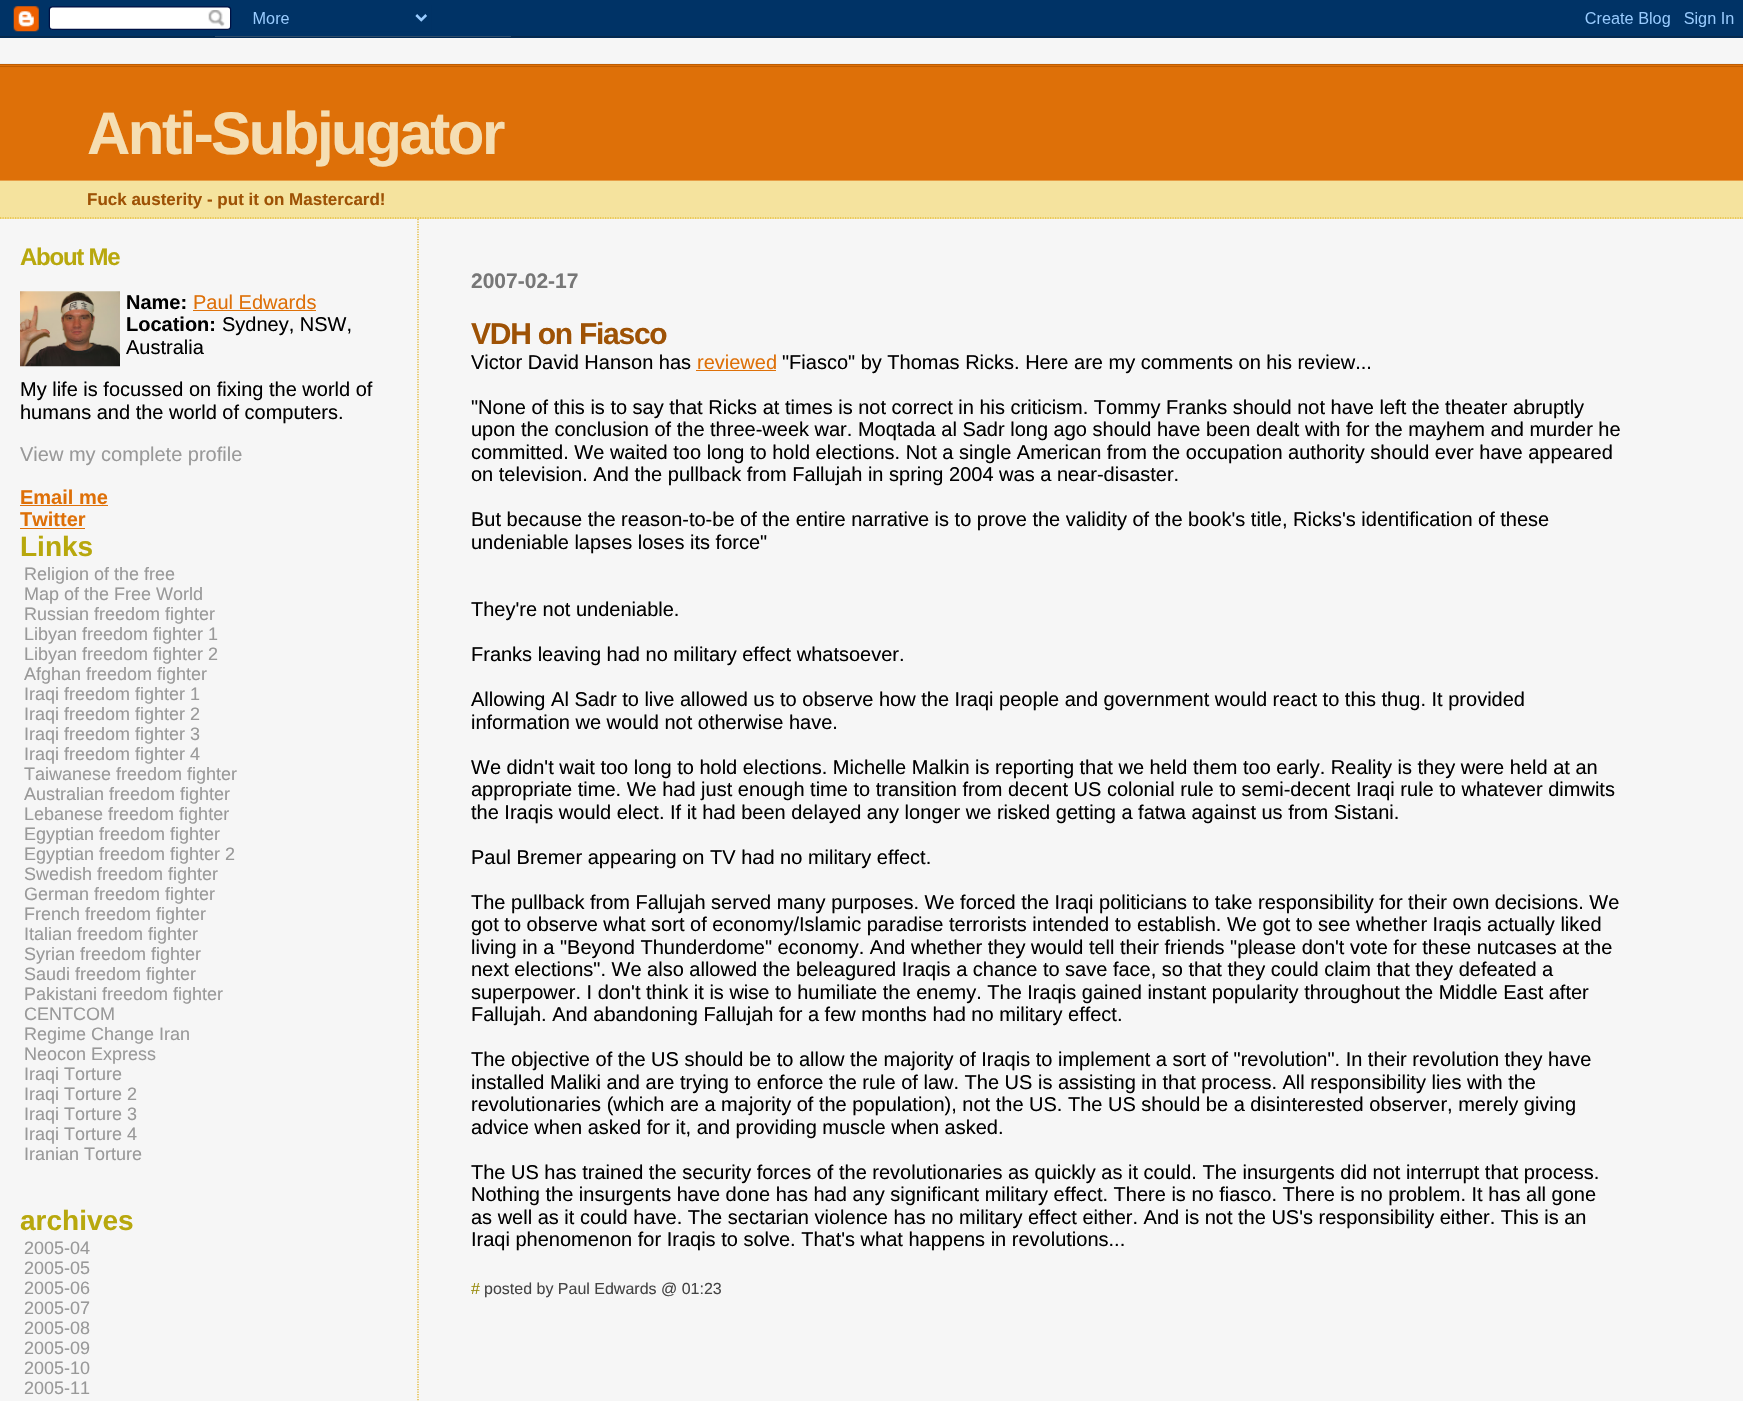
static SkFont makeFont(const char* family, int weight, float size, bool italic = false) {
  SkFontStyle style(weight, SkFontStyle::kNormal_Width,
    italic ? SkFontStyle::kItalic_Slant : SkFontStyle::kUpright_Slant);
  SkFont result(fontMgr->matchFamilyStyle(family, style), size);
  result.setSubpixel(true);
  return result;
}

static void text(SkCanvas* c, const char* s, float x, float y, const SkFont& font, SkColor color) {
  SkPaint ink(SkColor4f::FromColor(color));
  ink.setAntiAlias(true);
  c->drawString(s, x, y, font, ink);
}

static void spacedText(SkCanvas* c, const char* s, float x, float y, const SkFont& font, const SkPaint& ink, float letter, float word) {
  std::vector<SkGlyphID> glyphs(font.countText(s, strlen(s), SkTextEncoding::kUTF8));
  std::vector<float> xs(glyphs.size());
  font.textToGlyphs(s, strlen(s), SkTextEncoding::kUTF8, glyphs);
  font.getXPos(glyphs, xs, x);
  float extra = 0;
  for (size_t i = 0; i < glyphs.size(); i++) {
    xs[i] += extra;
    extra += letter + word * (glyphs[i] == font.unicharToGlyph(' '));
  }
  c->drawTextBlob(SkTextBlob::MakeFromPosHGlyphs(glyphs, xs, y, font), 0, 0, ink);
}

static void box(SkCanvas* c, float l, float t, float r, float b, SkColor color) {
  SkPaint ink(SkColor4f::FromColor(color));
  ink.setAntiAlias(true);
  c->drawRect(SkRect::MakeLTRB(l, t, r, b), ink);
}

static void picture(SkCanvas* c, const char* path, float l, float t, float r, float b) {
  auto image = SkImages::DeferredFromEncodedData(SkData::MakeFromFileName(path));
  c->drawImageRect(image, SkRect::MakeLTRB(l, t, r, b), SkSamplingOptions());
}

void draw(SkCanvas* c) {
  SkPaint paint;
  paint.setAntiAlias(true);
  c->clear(0xfff6f6f6);
  picture(c, "img_01.png", 0, 0, 1743, 38);
  box(c, 0, 181, 1743, 219, 0xfff5e39e);
  box(c, 0, 63, 1743, 64, 0xffeeeeee);
  paint.setStyle(SkPaint::kStroke_Style);
  paint.setStrokeWidth(1.2f);
  paint.setColor(0xffe0ad12);
  paint.setPathEffect(SkDashPathEffect::Make({{1.25f, 1.25f}}, 0));
  c->drawPath(SkPathBuilder().moveTo(0, 218).lineTo(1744, 218).detach(), paint);
  paint.setPathEffect(nullptr);
  box(c, 0, 65, 1743, 180, 0xffde7008);
  box(c, 0, 64, 1743, 65, 0xffbf5c00);
  box(c, 0, 66, 1743, 67, 0xffbf5c00);
  box(c, 0, 180, 1743, 181, 0xffe89e47);
  SkFont face1 = makeFont("Liberation Sans", 700, 60);
  paint.setStyle(SkPaint::kFill_Style);
  paint.setColor(0xfff5deb3);
  spacedText(c, "Anti-Subjugator", 87, 154, face1, paint, -2.5f, 0);
  SkFont face2 = makeFont("Liberation Sans", 700, 17);
  text(c, "Fuck austerity - put it on Mastercard!", 87, 205, face2, 0xff9e5205);
  SkFont face3 = makeFont("Liberation Sans", 700, 24);
  paint.setColor(0xffb8a80d);
  spacedText(c, "About Me", 20, 265, face3, paint, -1.25f, 0);
  picture(c, "img_02.png", 20, 291, 120, 367);
  SkFont face4 = makeFont("Liberation Sans", 700, 20);
  text(c, "Name:", 126, 309, face4, 0xff000000);
  SkFont face5 = makeFont("Liberation Sans", 400, 20);
  text(c, "Paul Edwards", 193, 309, face5, 0xffde7008);
  box(c, 193, 310, 316, 311, 0xffde7008);
  text(c, "Location:", 126, 331, face4, 0xff000000);
  text(c, "Sydney, NSW,", 222, 331, face5, 0xff000000);
  text(c, "Australia", 126, 354, face5, 0xff000000);
  text(c, "My life is focussed on fixing the world of", 20, 396, face5, 0xff000000);
  text(c, "humans and the world of computers.", 20, 419, face5, 0xff000000);
  text(c, "View my complete profile", 20, 461, face5, 0xff999999);
  text(c, "Email me", 20, 504, face4, 0xffde7008);
  box(c, 20, 505, 108, 506, 0xffde7008);
  text(c, "Twitter", 20, 526, face4, 0xffde7008);
  box(c, 20, 528, 85, 529, 0xffde7008);
  SkFont face6 = makeFont("Liberation Sans", 700, 28);
  text(c, "Links", 20, 556, face6, 0xffb8a80d);
  SkFont face7 = makeFont("Liberation Sans", 400, 18);
  text(c, "Religion of the free", 24, 580, face7, 0xff999999);
  text(c, "Map of the Free World", 24, 600, face7, 0xff999999);
  text(c, "Russian freedom fighter", 24, 620, face7, 0xff999999);
  text(c, "Libyan freedom fighter 1", 24, 640, face7, 0xff999999);
  text(c, "Libyan freedom fighter 2", 24, 660, face7, 0xff999999);
  text(c, "Afghan freedom fighter", 24, 680, face7, 0xff999999);
  text(c, "Iraqi freedom fighter 1", 24, 700, face7, 0xff999999);
  text(c, "Iraqi freedom fighter 2", 24, 720, face7, 0xff999999);
  text(c, "Iraqi freedom fighter 3", 24, 740, face7, 0xff999999);
  text(c, "Iraqi freedom fighter 4", 24, 760, face7, 0xff999999);
  text(c, "Taiwanese freedom fighter", 24, 780, face7, 0xff999999);
  text(c, "Australian freedom fighter", 24, 800, face7, 0xff999999);
  text(c, "Lebanese freedom fighter", 24, 820, face7, 0xff999999);
  text(c, "Egyptian freedom fighter", 24, 840, face7, 0xff999999);
  text(c, "Egyptian freedom fighter 2", 24, 860, face7, 0xff999999);
  text(c, "Swedish freedom fighter", 24, 880, face7, 0xff999999);
  text(c, "German freedom fighter", 24, 900, face7, 0xff999999);
  text(c, "French freedom fighter", 24, 920, face7, 0xff999999);
  text(c, "Italian freedom fighter", 24, 940, face7, 0xff999999);
  text(c, "Syrian freedom fighter", 24, 960, face7, 0xff999999);
  text(c, "Saudi freedom fighter", 24, 980, face7, 0xff999999);
  text(c, "Pakistani freedom fighter", 24, 1000, face7, 0xff999999);
  text(c, "CENTCOM", 24, 1020, face7, 0xff999999);
  text(c, "Regime Change Iran", 24, 1040, face7, 0xff999999);
  text(c, "Neocon Express", 24, 1060, face7, 0xff999999);
  text(c, "Iraqi Torture", 24, 1080, face7, 0xff999999);
  text(c, "Iraqi Torture 2", 24, 1100, face7, 0xff999999);
  text(c, "Iraqi Torture 3", 24, 1120, face7, 0xff999999);
  text(c, "Iraqi Torture 4", 24, 1140, face7, 0xff999999);
  text(c, "Iranian Torture", 24, 1160, face7, 0xff999999);
  text(c, "archives", 20, 1230, face6, 0xffb8a80d);
  text(c, "2005-04", 24, 1254, face7, 0xff999999);
  text(c, "2005-05", 24, 1274, face7, 0xff999999);
  text(c, "2005-06", 24, 1294, face7, 0xff999999);
  text(c, "2005-07", 24, 1314, face7, 0xff999999);
  text(c, "2005-08", 24, 1334, face7, 0xff999999);
  text(c, "2005-09", 24, 1354, face7, 0xff999999);
  text(c, "2005-10", 24, 1374, face7, 0xff999999);
  text(c, "2005-11", 24, 1394, face7, 0xff999999);
  paint.setStyle(SkPaint::kStroke_Style);
  paint.setColor(0xffe0ad12);
  paint.setPathEffect(SkDashPathEffect::Make({{1.25f, 1.25f}}, 0));
  c->drawPath(SkPathBuilder().moveTo(418, 219).lineTo(418, 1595).detach(), paint);
  paint.setPathEffect(nullptr);
  SkFont face8 = makeFont("Liberation Sans", 700, 21);
  text(c, "2007-02-17", 471, 288, face8, 0xff777777);
  SkFont face9 = makeFont("Liberation Sans", 700, 30);
  paint.setStyle(SkPaint::kFill_Style);
  paint.setColor(0xff9e5205);
  spacedText(c, "VDH on Fiasco", 471, 344, face9, paint, -1.25f, 0);
  text(c, "Victor David Hanson has", 471, 369, face5, 0xff000000);
  text(c, "reviewed", 697, 369, face5, 0xffde7008);
  box(c, 696, 370, 776, 371, 0xffde7008);
  text(c, "\"Fiasco\" by Thomas Ricks. Here are my comments on his review...", 782, 369, face5, 0xff000000);
  text(c, "\"None of this is to say that Ricks at times is not correct in his criticism. Tommy Franks should not have left the theater abruptly", 471, 414, face5, 0xff000000);
  text(c, "upon the conclusion of the three-week war. Moqtada al Sadr long ago should have been dealt with for the mayhem and murder he", 471, 436, face5, 0xff000000);
  text(c, "committed. We waited too long to hold elections. Not a single American from the occupation authority should ever have appeared", 471, 459, face5, 0xff000000);
  text(c, "on television. And the pullback from Fallujah in spring 2004 was a near-disaster.", 471, 481, face5, 0xff000000);
  text(c, "But because the reason-to-be of the entire narrative is to prove the validity of the book's title, Ricks's identification of these", 471, 526, face5, 0xff000000);
  text(c, "undeniable lapses loses its force\"", 471, 549, face5, 0xff000000);
  text(c, "They're not undeniable.", 471, 616, face5, 0xff000000);
  text(c, "Franks leaving had no military effect whatsoever.", 471, 661, face5, 0xff000000);
  text(c, "Allowing Al Sadr to live allowed us to observe how the Iraqi people and government would react to this thug. It provided", 471, 706, face5, 0xff000000);
  text(c, "information we would not otherwise have.", 471, 729, face5, 0xff000000);
  text(c, "We didn't wait too long to hold elections. Michelle Malkin is reporting that we held them too early. Reality is they were held at an", 471, 774, face5, 0xff000000);
  text(c, "appropriate time. We had just enough time to transition from decent US colonial rule to semi-decent Iraqi rule to whatever dimwits", 471, 796, face5, 0xff000000);
  text(c, "the Iraqis would elect. If it had been delayed any longer we risked getting a fatwa against us from Sistani.", 471, 819, face5, 0xff000000);
  text(c, "Paul Bremer appearing on TV had no military effect.", 471, 864, face5, 0xff000000);
  text(c, "The pullback from Fallujah served many purposes. We forced the Iraqi politicians to take responsibility for their own decisions. We", 471, 909, face5, 0xff000000);
  text(c, "got to observe what sort of economy/Islamic paradise terrorists intended to establish. We got to see whether Iraqis actually liked", 471, 931, face5, 0xff000000);
  text(c, "living in a \"Beyond Thunderdome\" economy. And whether they would tell their friends \"please don't vote for these nutcases at the", 471, 954, face5, 0xff000000);
  text(c, "next elections\". We also allowed the beleagured Iraqis a chance to save face, so that they could claim that they defeated a", 471, 976, face5, 0xff000000);
  text(c, "superpower. I don't think it is wise to humiliate the enemy. The Iraqis gained instant popularity throughout the Middle East after", 471, 999, face5, 0xff000000);
  text(c, "Fallujah. And abandoning Fallujah for a few months had no military effect.", 471, 1021, face5, 0xff000000);
  text(c, "The objective of the US should be to allow the majority of Iraqis to implement a sort of \"revolution\". In their revolution they have", 471, 1066, face5, 0xff000000);
  text(c, "installed Maliki and are trying to enforce the rule of law. The US is assisting in that process. All responsibility lies with the", 471, 1089, face5, 0xff000000);
  text(c, "revolutionaries (which are a majority of the population), not the US. The US should be a disinterested observer, merely giving", 471, 1111, face5, 0xff000000);
  text(c, "advice when asked for it, and providing muscle when asked.", 471, 1134, face5, 0xff000000);
  text(c, "The US has trained the security forces of the revolutionaries as quickly as it could. The insurgents did not interrupt that process.", 471, 1179, face5, 0xff000000);
  text(c, "Nothing the insurgents have done has had any significant military effect. There is no fiasco. There is no problem. It has all gone", 471, 1201, face5, 0xff000000);
  text(c, "as well as it could have. The sectarian violence has no military effect either. And is not the US's responsibility either. This is an", 471, 1224, face5, 0xff000000);
  text(c, "Iraqi phenomenon for Iraqis to solve. That's what happens in revolutions...", 471, 1246, face5, 0xff000000);
  SkFont face10 = makeFont("Liberation Sans", 400, 16);
  text(c, "#", 471, 1294, face10, 0xff968a0a);
  text(c, "posted by Paul Edwards @ 01:23", 484, 1294, face10, 0xff444444);
}
